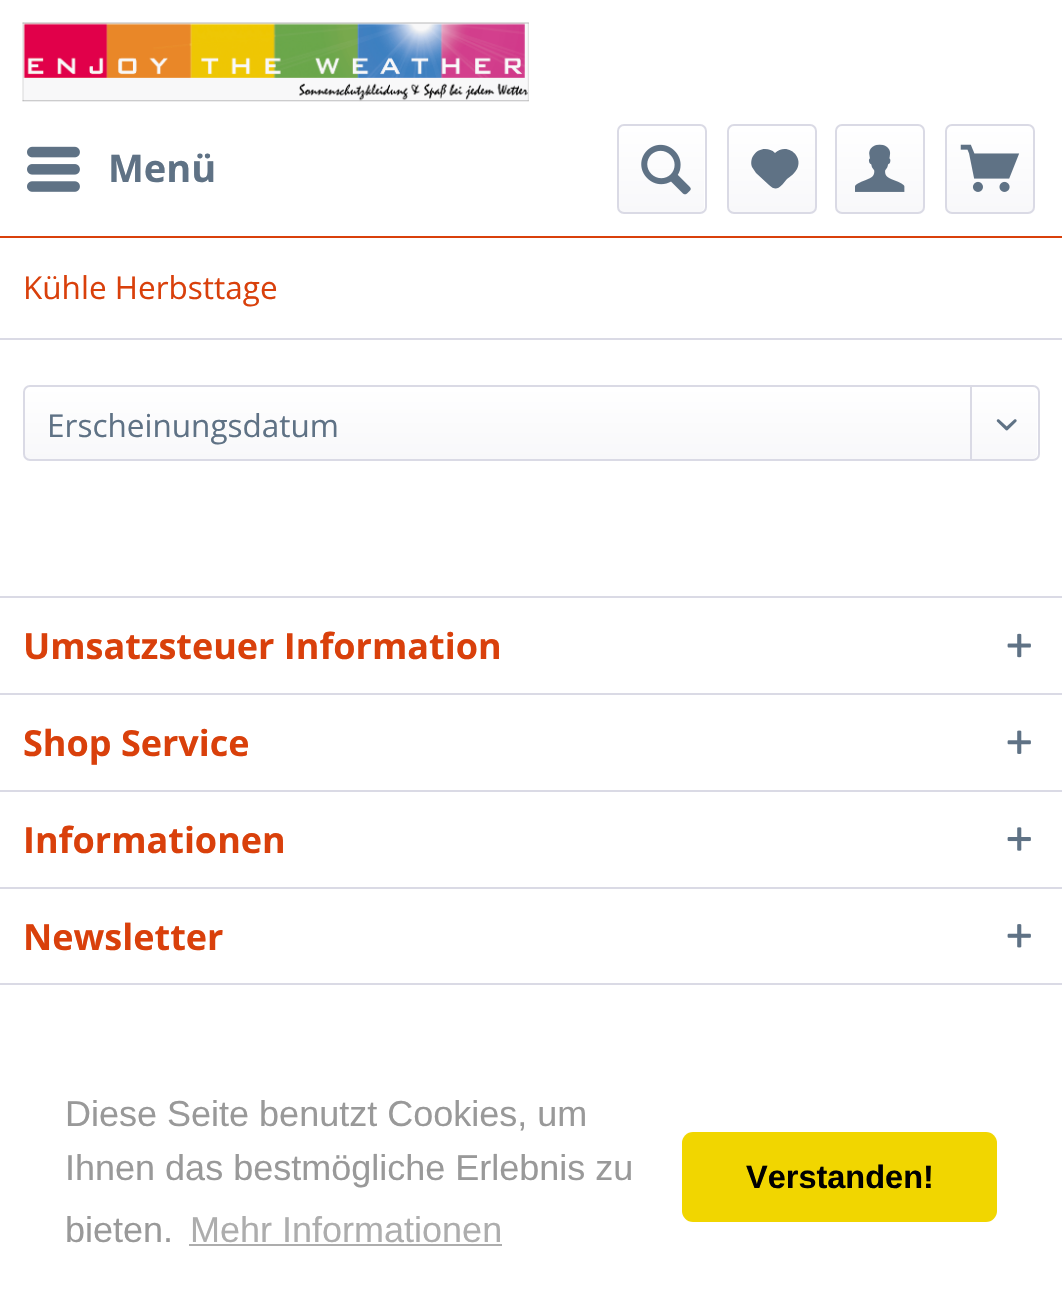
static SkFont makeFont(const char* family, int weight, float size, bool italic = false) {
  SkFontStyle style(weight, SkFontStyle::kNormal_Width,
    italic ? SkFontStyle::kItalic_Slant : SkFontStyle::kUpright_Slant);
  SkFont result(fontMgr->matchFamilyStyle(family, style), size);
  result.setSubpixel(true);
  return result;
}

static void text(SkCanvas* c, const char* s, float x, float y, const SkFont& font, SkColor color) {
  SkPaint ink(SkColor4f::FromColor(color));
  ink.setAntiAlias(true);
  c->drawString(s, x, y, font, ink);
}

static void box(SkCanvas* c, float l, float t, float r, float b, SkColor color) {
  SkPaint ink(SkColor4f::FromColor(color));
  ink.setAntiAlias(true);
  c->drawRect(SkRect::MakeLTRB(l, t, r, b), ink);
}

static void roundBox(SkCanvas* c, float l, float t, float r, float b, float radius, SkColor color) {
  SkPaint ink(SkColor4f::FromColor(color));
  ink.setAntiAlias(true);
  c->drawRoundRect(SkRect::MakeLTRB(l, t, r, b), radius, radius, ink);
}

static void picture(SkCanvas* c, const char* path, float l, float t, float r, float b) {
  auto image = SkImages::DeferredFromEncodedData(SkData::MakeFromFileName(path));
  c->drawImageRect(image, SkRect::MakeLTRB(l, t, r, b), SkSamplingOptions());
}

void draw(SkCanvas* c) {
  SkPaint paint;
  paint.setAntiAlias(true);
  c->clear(0xffffffff);
  box(c, 0, 236, 1062, 238, 0xffd9400b);
  picture(c, "img_01.png", 22, 22, 529, 102);
  picture(c, "img_02.png", 27, 146, 80, 192);
  SkFont face1 = makeFont("Open Sans", 700, 38);
  text(c, "Menü", 108, 182, face1, 0xff5f7285);
  {
    const SkColor colors[] = {0xffffffff, 0xfff8f8fa};
    const float stops[] = {0, 1};
    const SkPoint ends[] = {{662, 126}, {662, 212}};
    paint.setShader(SkGradientShader::MakeLinear(ends, colors, stops, 2, SkTileMode::kClamp));
    paint.setAlpha(255);
  }
  c->drawRoundRect(SkRect::MakeLTRB(619, 126, 704, 212), 5, 5, paint);
  paint.setStyle(SkPaint::kStroke_Style);
  paint.setStrokeWidth(2);
  paint.setShader(nullptr);
  paint.setColor(0xffdadae5);
  c->drawRoundRect(SkRect::MakeLTRB(618, 125, 706, 213), 6, 6, paint);
  picture(c, "img_03.png", 641, 144, 691, 195);
  paint.setStyle(SkPaint::kFill_Style);
  {
    const SkColor colors[] = {0xffffffff, 0xfff8f8fa};
    const float stops[] = {0, 1};
    const SkPoint ends[] = {{772, 126}, {772, 212}};
    paint.setShader(SkGradientShader::MakeLinear(ends, colors, stops, 2, SkTileMode::kClamp));
    paint.setAlpha(255);
  }
  c->drawRoundRect(SkRect::MakeLTRB(729, 126, 815, 212), 5, 5, paint);
  paint.setStyle(SkPaint::kStroke_Style);
  paint.setShader(nullptr);
  paint.setColor(0xffdadae5);
  c->drawRoundRect(SkRect::MakeLTRB(728, 125, 816, 213), 6, 6, paint);
  paint.setStyle(SkPaint::kFill_Style);
  paint.setColor(0xff5f7285);
  c->drawPath(SkPathBuilder().moveTo(765, 149).cubicTo(756, 149, 749, 158, 752, 167).lineTo(756, 173).lineTo(769, 185).cubicTo(777, 193, 781, 186, 787, 179).cubicTo(791, 176, 795, 173, 797, 169).cubicTo(804, 155, 786, 142, 775, 153).cubicTo(772, 150, 769, 149, 765, 149).close().detach(), paint);
  {
    const SkColor colors[] = {0xffffffff, 0xfff8f8fa};
    const float stops[] = {0, 1};
    const SkPoint ends[] = {{880, 126}, {880, 212}};
    paint.setShader(SkGradientShader::MakeLinear(ends, colors, stops, 2, SkTileMode::kClamp));
    paint.setAlpha(255);
  }
  c->drawRoundRect(SkRect::MakeLTRB(837, 126, 923, 212), 5, 5, paint);
  paint.setStyle(SkPaint::kStroke_Style);
  paint.setShader(nullptr);
  paint.setColor(0xffdadae5);
  c->drawRoundRect(SkRect::MakeLTRB(836, 125, 924, 213), 6, 6, paint);
  picture(c, "img_04.png", 855, 144, 905, 192);
  paint.setStyle(SkPaint::kFill_Style);
  {
    const SkColor colors[] = {0xffffffff, 0xfff8f8fa};
    const float stops[] = {0, 1};
    const SkPoint ends[] = {{990, 126}, {990, 212}};
    paint.setShader(SkGradientShader::MakeLinear(ends, colors, stops, 2, SkTileMode::kClamp));
    paint.setAlpha(255);
  }
  c->drawRoundRect(SkRect::MakeLTRB(947, 126, 1033, 212), 5, 5, paint);
  paint.setStyle(SkPaint::kStroke_Style);
  paint.setShader(nullptr);
  paint.setColor(0xffdadae5);
  c->drawRoundRect(SkRect::MakeLTRB(946, 125, 1034, 213), 6, 6, paint);
  picture(c, "img_05.png", 960, 144, 1020, 192);
  box(c, 0, 338, 1062, 340, 0xffdadae5);
  SkFont face2 = makeFont("Open Sans", 400, 31.5f);
  text(c, "Kühle Herbsttage", 23, 299, face2, 0xffd9400b);
  paint.setStyle(SkPaint::kFill_Style);
  {
    const SkColor colors[] = {0xffffffff, 0xfff8f8fa};
    const float stops[] = {0, 1};
    const SkPoint ends[] = {{531, 387}, {531, 459}};
    paint.setShader(SkGradientShader::MakeLinear(ends, colors, stops, 2, SkTileMode::kClamp));
    paint.setAlpha(255);
  }
  c->drawRoundRect(SkRect::MakeLTRB(25, 387, 1037, 459), 5, 5, paint);
  paint.setStyle(SkPaint::kStroke_Style);
  paint.setShader(nullptr);
  paint.setColor(0xffdadae5);
  c->drawRoundRect(SkRect::MakeLTRB(24, 386, 1039, 460), 6, 6, paint);
  text(c, "Erscheinungsdatum", 47, 437, face2, 0xff5f7285);
  box(c, 970, 387, 972, 461, 0xffdadae5);
  picture(c, "img_06.png", 996, 419, 1017, 431);
  box(c, 0, 596, 1062, 598, 0xffdadae5);
  SkFont face3 = makeFont("Open Sans", 700, 36);
  text(c, "Umsatzsteuer Information", 23, 659, face3, 0xffd9400b);
  picture(c, "img_07.png", 1007, 633, 1031, 658);
  box(c, 0, 693, 1062, 695, 0xffdadae5);
  text(c, "Shop Service", 23, 756, face3, 0xffd9400b);
  picture(c, "img_08.png", 1007, 730, 1031, 754);
  box(c, 0, 790, 1062, 792, 0xffdadae5);
  text(c, "Informationen", 23, 853, face3, 0xffd9400b);
  picture(c, "img_09.png", 1007, 827, 1031, 851);
  box(c, 0, 887, 1062, 889, 0xffdadae5);
  box(c, 0, 983, 1062, 985, 0xffdadae5);
  text(c, "Newsletter", 23, 950, face3, 0xffd9400b);
  picture(c, "img_10.png", 1007, 924, 1031, 948);
  SkFont face4 = makeFont("Liberation Sans", 400, 36);
  text(c, "Diese Seite benutzt Cookies, um", 65, 1126, face4, 0xff999999);
  text(c, "Ihnen das bestmögliche Erlebnis zu", 65, 1180, face4, 0xff999999);
  text(c, "bieten.", 65, 1242, face4, 0xff999999);
  text(c, "Mehr Informationen", 190, 1242, face4, 0xffadadad);
  box(c, 189, 1244, 502, 1246, 0xffadadad);
  roundBox(c, 682, 1132, 997, 1222, 11, 0xfff1d600);
  SkFont face5 = makeFont("Liberation Sans", 700, 32.5f);
  text(c, "Verstanden!", 746, 1188, face5, 0xff000000);
}
